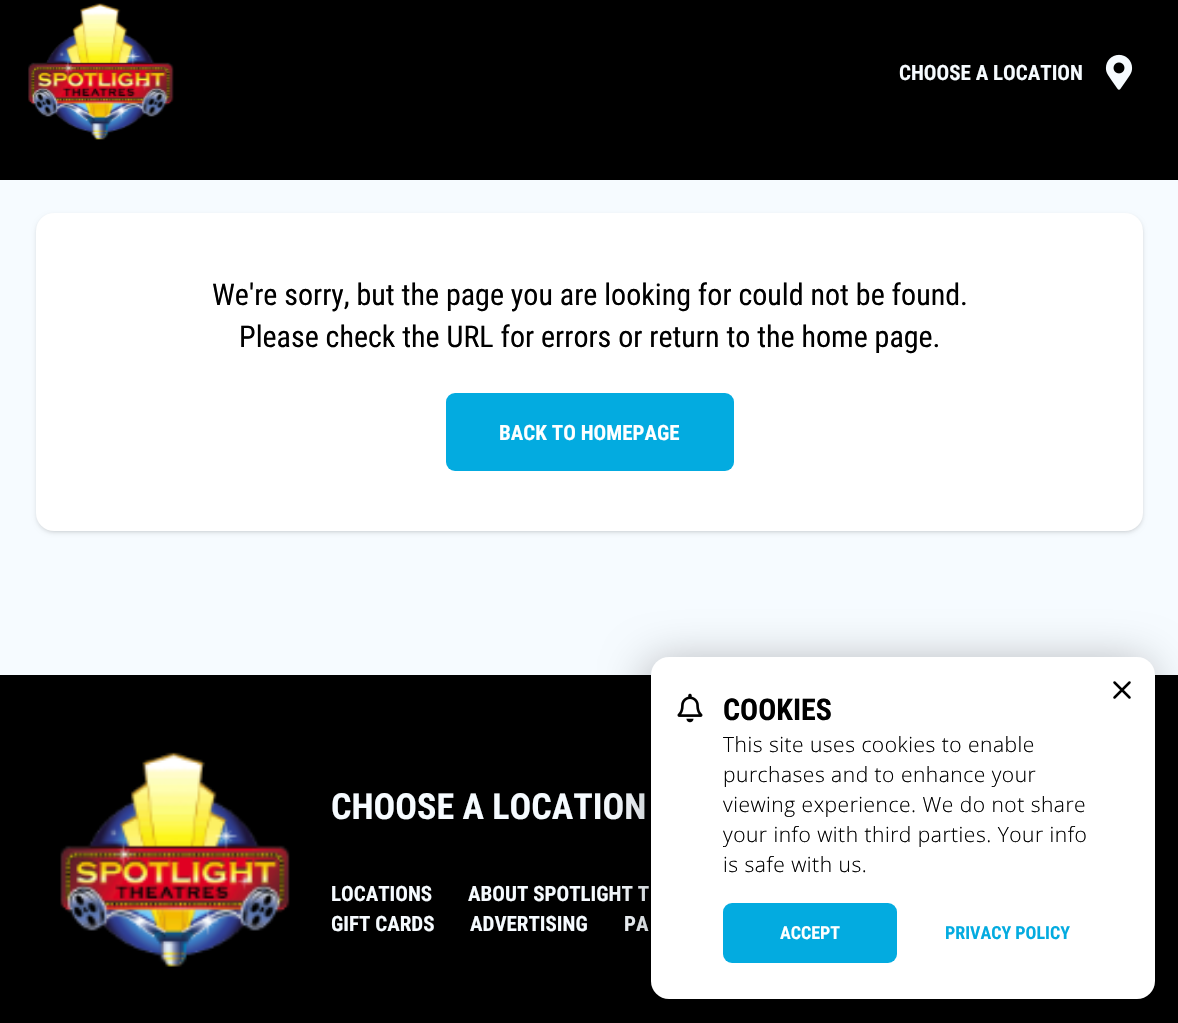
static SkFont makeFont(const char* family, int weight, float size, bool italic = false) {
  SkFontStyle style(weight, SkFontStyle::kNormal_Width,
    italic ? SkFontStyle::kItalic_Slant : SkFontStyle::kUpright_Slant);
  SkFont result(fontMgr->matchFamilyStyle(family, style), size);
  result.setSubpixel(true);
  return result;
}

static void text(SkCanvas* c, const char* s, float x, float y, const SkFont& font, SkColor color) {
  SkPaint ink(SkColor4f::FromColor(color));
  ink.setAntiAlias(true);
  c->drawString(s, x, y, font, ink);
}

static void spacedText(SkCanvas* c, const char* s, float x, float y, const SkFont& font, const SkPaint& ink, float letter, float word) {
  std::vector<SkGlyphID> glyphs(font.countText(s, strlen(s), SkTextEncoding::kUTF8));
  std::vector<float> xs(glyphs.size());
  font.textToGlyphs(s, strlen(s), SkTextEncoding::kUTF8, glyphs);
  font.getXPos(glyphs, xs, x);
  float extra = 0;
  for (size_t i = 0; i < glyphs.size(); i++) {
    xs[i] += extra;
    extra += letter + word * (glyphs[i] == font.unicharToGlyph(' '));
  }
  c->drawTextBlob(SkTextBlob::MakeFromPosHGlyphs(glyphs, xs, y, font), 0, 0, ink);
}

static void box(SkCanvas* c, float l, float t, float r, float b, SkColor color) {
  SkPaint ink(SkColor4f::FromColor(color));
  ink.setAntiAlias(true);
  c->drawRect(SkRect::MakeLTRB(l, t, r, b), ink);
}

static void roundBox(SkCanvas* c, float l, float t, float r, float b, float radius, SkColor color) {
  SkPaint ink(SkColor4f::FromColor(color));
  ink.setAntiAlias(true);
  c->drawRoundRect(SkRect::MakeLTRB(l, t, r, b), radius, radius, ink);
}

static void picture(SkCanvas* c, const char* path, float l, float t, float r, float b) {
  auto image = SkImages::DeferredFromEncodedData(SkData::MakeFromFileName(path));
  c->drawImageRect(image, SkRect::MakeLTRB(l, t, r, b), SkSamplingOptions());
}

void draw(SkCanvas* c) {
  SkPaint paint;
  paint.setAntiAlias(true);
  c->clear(0xfff6fbff);
  box(c, 0, 0, 1178, 180, 0xff000000);
  picture(c, "img_01.png", 28, 3, 174, 140);
  SkFont face1 = makeFont("Roboto Condensed", 700, 21);
  text(c, "CHOOSE A LOCATION", 899, 80, face1, 0xfff6fbff);
  picture(c, "img_02.png", 1105, 54, 1133, 90);
  paint.setColor(0x1a000000);
  paint.setMaskFilter(SkMaskFilter::MakeBlur(kNormal_SkBlurStyle, 1.5f));
  c->drawRoundRect(SkRect::MakeLTRB(38, 216, 1142, 531), 17, 17, paint);
  paint.setMaskFilter(nullptr);
  paint.setMaskFilter(SkMaskFilter::MakeBlur(kNormal_SkBlurStyle, 2));
  c->drawRoundRect(SkRect::MakeLTRB(36, 215, 1143, 533), 18, 18, paint);
  paint.setMaskFilter(nullptr);
  roundBox(c, 36, 213, 1143, 531, 18, 0xffffffff);
  SkFont face2 = makeFont("Roboto Condensed", 400, 30);
  text(c, "We're sorry, but the page you are looking for could not be found.", 212, 305, face2, 0xff000000);
  text(c, "Please check the URL for errors or return to the home page.", 239, 347, face2, 0xff000000);
  roundBox(c, 446, 393, 734, 471, 9, 0xff03abe0);
  text(c, "BACK TO HOMEPAGE", 499, 440, face1, 0xffffffff);
  box(c, 0, 675, 1178, 1023, 0xff000000);
  picture(c, "img_03.png", 60, 752, 290, 967);
  SkFont face3 = makeFont("Roboto Condensed", 700, 36);
  text(c, "CHOOSE A LOCATION", 331, 819, face3, 0xfff6fbff);
  text(c, "LOCATIONS", 331, 901, face1, 0xfff6fbff);
  text(c, "ABOUT SPOTLIGHT T", 468, 901, face1, 0xfff6fbff);
  text(c, "GIFT CARDS", 331, 931, face1, 0xfff6fbff);
  text(c, "ADVERTISING", 470, 931, face1, 0xfff6fbff);
  text(c, "PA", 624, 931, face1, 0xfff6fbff);
  paint.setColor(0x4d000000);
  paint.setMaskFilter(SkMaskFilter::MakeBlur(kNormal_SkBlurStyle, 22.5f));
  c->drawRoundRect(SkRect::MakeLTRB(647, 663, 1151, 1005), 18, 18, paint);
  paint.setMaskFilter(nullptr);
  roundBox(c, 651, 657, 1155, 999, 18, 0xffffffff);
  paint.setStyle(SkPaint::kStroke_Style);
  paint.setStrokeWidth(2.5f);
  paint.setStrokeCap(SkPaint::kRound_Cap);
  paint.setStrokeJoin(SkPaint::kRound_Join);
  paint.setColor(0xff000000);
  c->drawPath(SkPathBuilder().moveTo(1114.5f, 697.5f).lineTo(1129.5f, 682.5f).moveTo(1114.5f, 682.5f).lineTo(1129.5f, 697.5f).detach(), paint);
  picture(c, "img_04.png", 677, 693, 703, 723);
  SkFont face4 = makeFont("Roboto Condensed", 700, 30);
  text(c, "COOKIES", 723, 720, face4, 0xff000000);
  SkFont face5 = makeFont("Open Sans", 300, 21);
  paint.setStyle(SkPaint::kFill_Style);
  spacedText(c, "This site uses cookies to enable", 723, 752, face5, paint, 0.5f, 0);
  spacedText(c, "purchases and to enhance your", 723, 782, face5, paint, 0.5f, 0);
  spacedText(c, "viewing experience. We do not share", 723, 812, face5, paint, 0.5f, 0);
  spacedText(c, "your info with third parties. Your info", 723, 842, face5, paint, 0.5f, 0);
  spacedText(c, "is safe with us.", 723, 872, face5, paint, 0.5f, 0);
  roundBox(c, 723, 903, 897, 963, 9, 0xff03abe0);
  SkFont face6 = makeFont("Roboto Condensed", 700, 18);
  text(c, "ACCEPT", 780, 939, face6, 0xffffffff);
  text(c, "PRIVACY POLICY", 945, 939, face6, 0xff03abe0);
}
